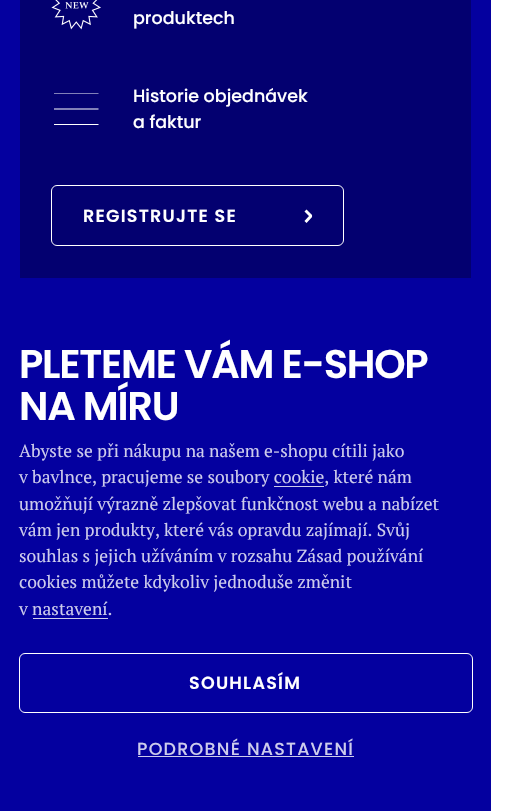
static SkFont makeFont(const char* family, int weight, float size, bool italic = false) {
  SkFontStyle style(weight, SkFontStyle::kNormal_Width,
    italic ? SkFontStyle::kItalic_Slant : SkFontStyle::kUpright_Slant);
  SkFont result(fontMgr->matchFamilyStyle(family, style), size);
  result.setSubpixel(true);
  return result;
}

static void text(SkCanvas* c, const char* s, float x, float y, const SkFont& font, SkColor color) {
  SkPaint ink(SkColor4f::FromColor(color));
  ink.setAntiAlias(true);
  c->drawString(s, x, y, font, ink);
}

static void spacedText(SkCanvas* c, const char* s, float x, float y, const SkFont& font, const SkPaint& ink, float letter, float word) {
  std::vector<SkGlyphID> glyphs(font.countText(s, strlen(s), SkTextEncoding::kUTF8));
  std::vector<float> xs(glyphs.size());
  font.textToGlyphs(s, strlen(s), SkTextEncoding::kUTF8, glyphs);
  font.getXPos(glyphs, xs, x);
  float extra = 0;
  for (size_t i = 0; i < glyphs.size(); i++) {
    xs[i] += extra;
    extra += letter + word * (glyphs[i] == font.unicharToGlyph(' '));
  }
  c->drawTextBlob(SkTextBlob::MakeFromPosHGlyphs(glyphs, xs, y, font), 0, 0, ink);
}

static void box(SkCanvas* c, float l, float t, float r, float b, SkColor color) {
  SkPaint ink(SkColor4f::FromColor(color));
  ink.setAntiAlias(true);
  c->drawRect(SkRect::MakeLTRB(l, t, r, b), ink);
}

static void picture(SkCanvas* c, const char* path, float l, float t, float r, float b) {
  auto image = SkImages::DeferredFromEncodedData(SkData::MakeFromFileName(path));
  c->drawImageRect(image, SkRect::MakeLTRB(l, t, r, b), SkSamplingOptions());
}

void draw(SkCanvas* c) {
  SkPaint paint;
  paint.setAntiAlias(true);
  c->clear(0xffffffff);
  box(c, 0, 0, 491, 324, 0xff04009f);
  box(c, 20, 0, 471, 278, 0xff030070);
  picture(c, "img_01.png", 51, 0, 101, 30);
  SkFont face1 = makeFont("Poppins", 500, 17.5f);
  text(c, "produktech", 133, 24, face1, 0xffffffff);
  c->save();
  c->clipRect(SkRect::MakeLTRB(54, 93, 99, 125));
  paint.setStyle(SkPaint::kStroke_Style);
  paint.setStrokeWidth(1.2f);
  paint.setColor(0xffffffff);
  c->drawPath(SkPathBuilder().moveTo(54, 93).lineTo(98.5f, 93).moveTo(54, 109).lineTo(98.5f, 109).moveTo(54, 124.5f).lineTo(98.5f, 124.5f).detach(), paint);
  c->restore();
  text(c, "Historie objednávek", 133, 102, face1, 0xffffffff);
  text(c, "a faktur", 133, 128, face1, 0xffffffff);
  paint.setStrokeWidth(1);
  c->drawRoundRect(SkRect::MakeLTRB(51.5f, 185.5f, 343.5f, 245.5f), 5.5f, 5.5f, paint);
  SkFont face2 = makeFont("Poppins", 600, 17.5f);
  paint.setStyle(SkPaint::kFill_Style);
  spacedText(c, "REGISTRUJTE SE", 83, 222, face2, paint, 1.25f, 0);
  paint.setStyle(SkPaint::kStroke_Style);
  paint.setStrokeWidth(2.9f);
  paint.setStrokeJoin(SkPaint::kBevel_Join);
  c->drawPath(SkPathBuilder().moveTo(305.5f, 210.5f).lineTo(311, 216).lineTo(305.5f, 222).detach(), paint);
  paint.setStyle(SkPaint::kFill_Style);
  paint.setColor(0xff04009f);
  c->drawPath(SkPathBuilder().moveTo(13, 311).lineTo(478, 311).cubicTo(485, 311, 491, 317, 491, 324).lineTo(491, 811).lineTo(0, 811).lineTo(0, 324).cubicTo(0, 317, 6, 311, 13, 311).close().detach(), paint);
  SkFont face3 = makeFont("Poppins", 600, 40);
  paint.setColor(0xffffffff);
  spacedText(c, "PLETEME VÁM E-SHOP", 19, 378, face3, paint, -1.25f, 0);
  spacedText(c, "NA MÍRU", 19, 420, face3, paint, -1.25f, 0);
  SkFont face4 = makeFont("PT Serif", 400, 17.5f);
  text(c, "Abyste se při nákupu na našem e-shopu cítili jako", 19, 457, face4, 0xffcdccec);
  text(c, "v bavlnce, pracujeme se soubory cookie, které nám", 19, 483, face4, 0xffcdccec);
  box(c, 274, 486, 324, 487, 0xffcdccec);
  text(c, "umožňují výrazně zlepšovat funkčnost webu a nabízet", 19, 510, face4, 0xffcdccec);
  text(c, "vám jen produkty, které vás opravdu zajímají. Svůj", 19, 536, face4, 0xffcdccec);
  text(c, "souhlas s jejich užíváním v rozsahu Zásad používání", 19, 562, face4, 0xffcdccec);
  text(c, "cookies můžete kdykoliv jednoduše změnit", 19, 588, face4, 0xffcdccec);
  text(c, "v nastavení.", 19, 615, face4, 0xffcdccec);
  box(c, 33, 618, 108, 619, 0xffcdccec);
  paint.setStyle(SkPaint::kStroke_Style);
  paint.setStrokeWidth(1);
  paint.setStrokeJoin(SkPaint::kMiter_Join);
  c->drawRoundRect(SkRect::MakeLTRB(19.5f, 653.5f, 472.5f, 712.5f), 5.5f, 5.5f, paint);
  paint.setStyle(SkPaint::kFill_Style);
  spacedText(c, "SOUHLASÍM", 189, 689, face2, paint, 1.25f, 0);
  paint.setColor(0xffcdccec);
  spacedText(c, "PODROBNÉ NASTAVENÍ", 137, 755, face1, paint, 1.25f, 0);
  box(c, 138, 756, 354, 757, 0xffcdccec);
}
